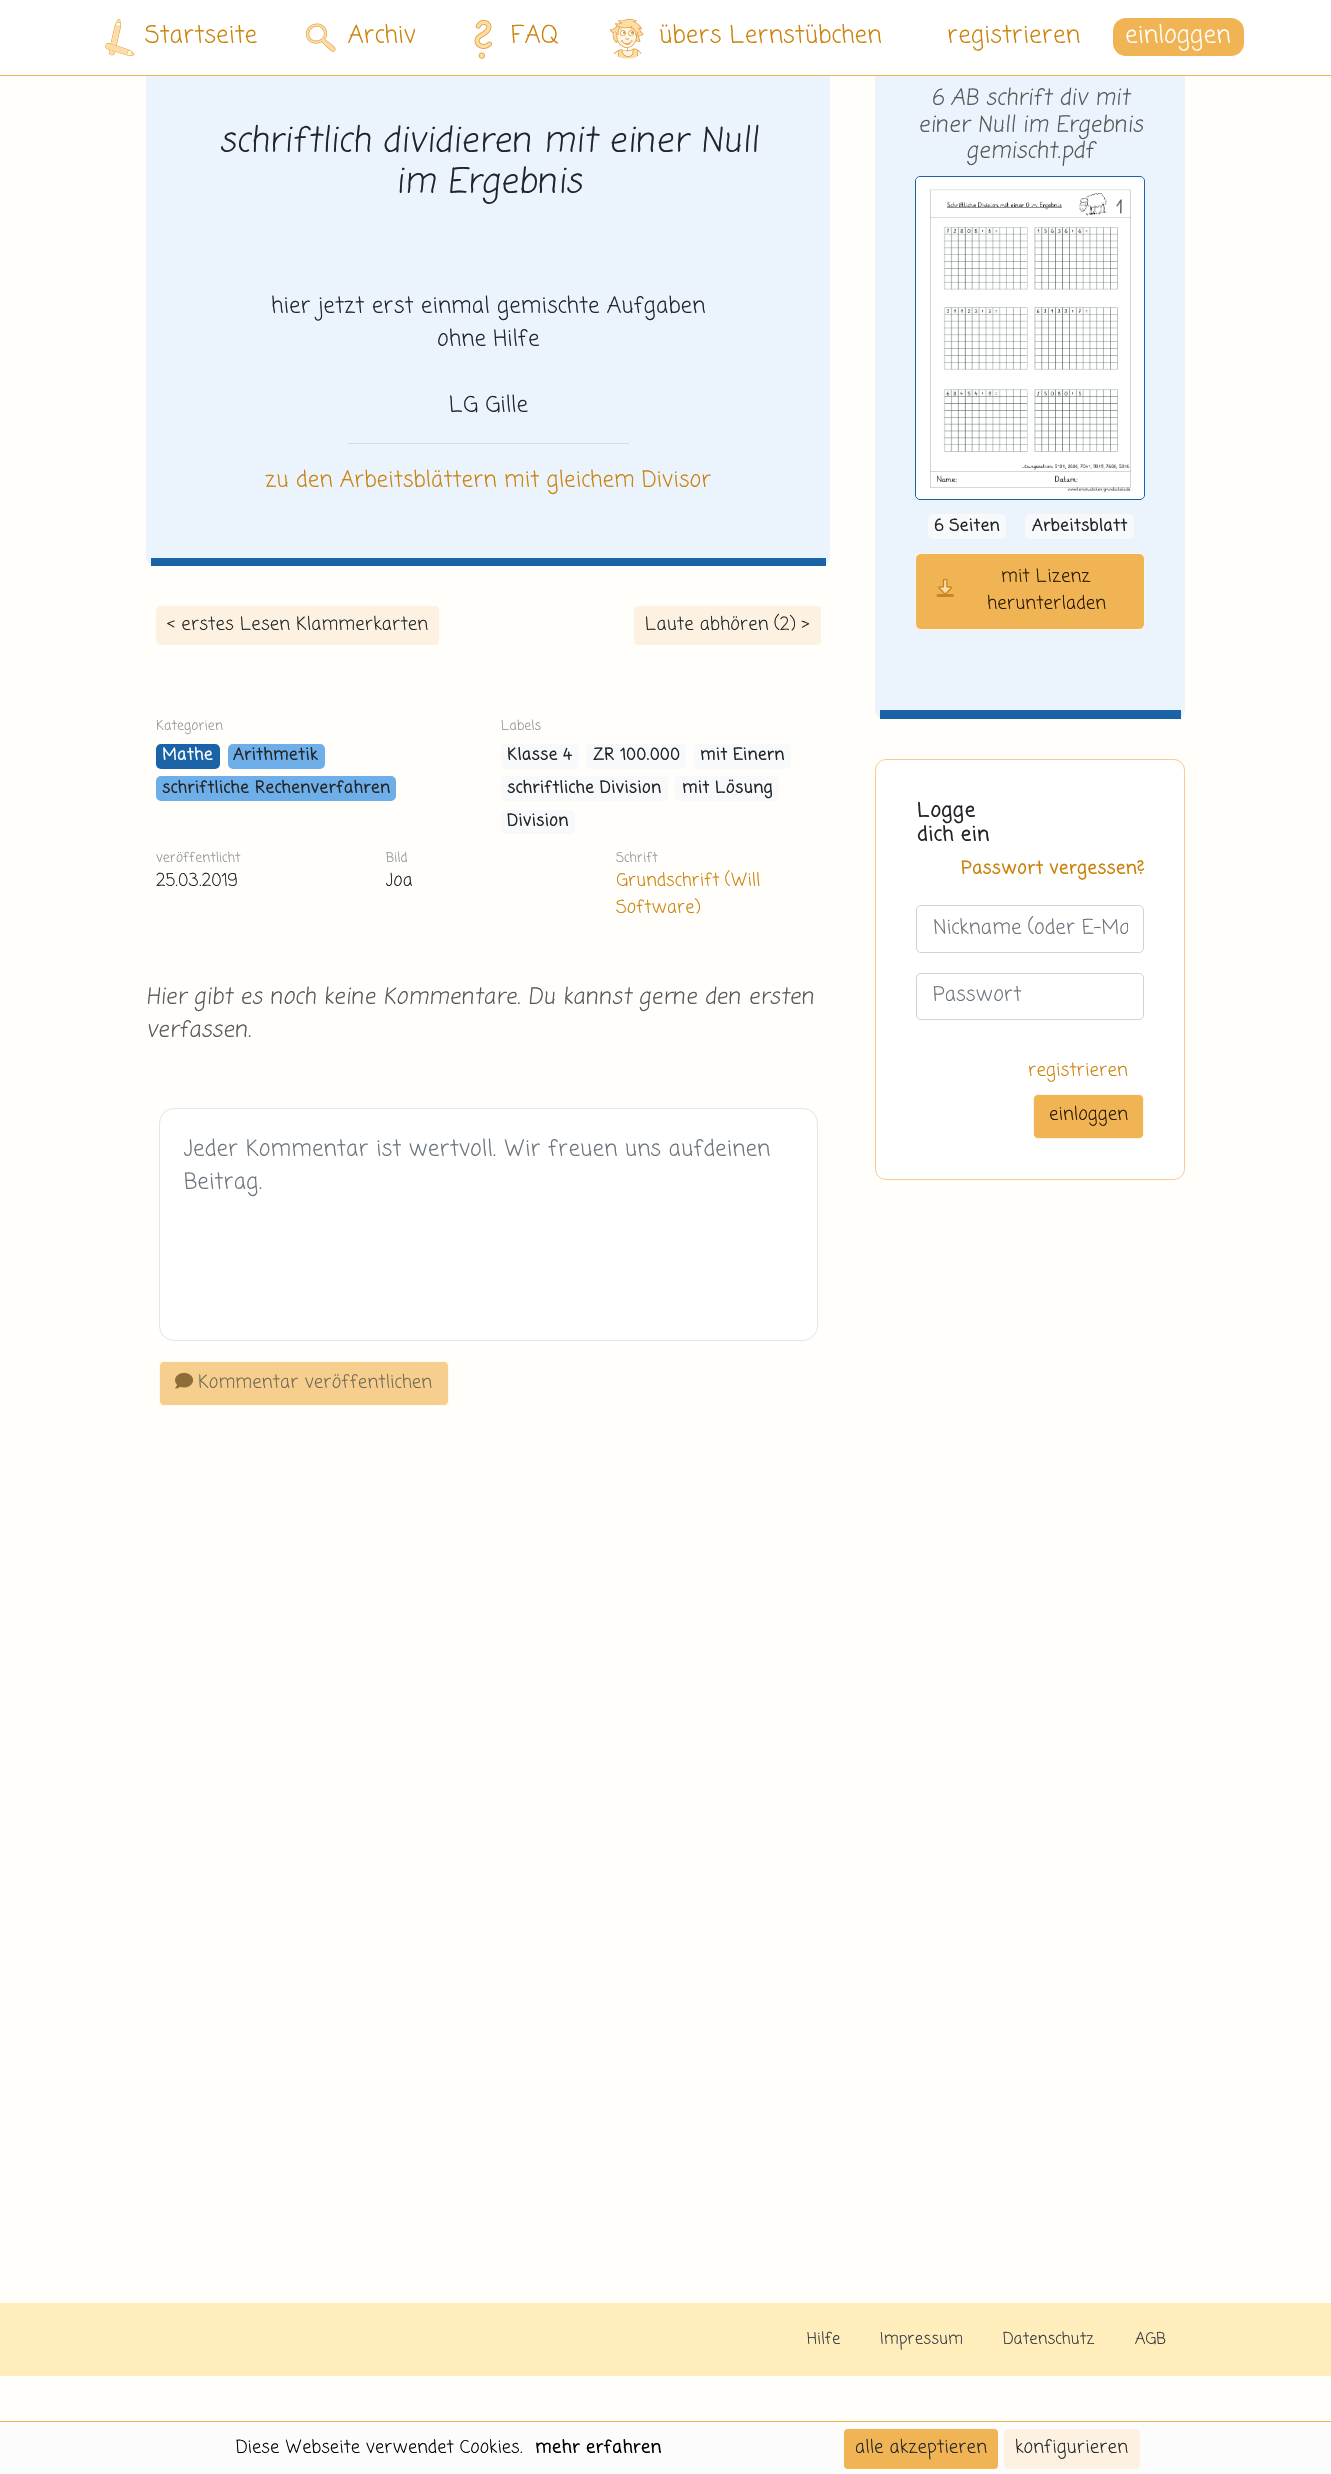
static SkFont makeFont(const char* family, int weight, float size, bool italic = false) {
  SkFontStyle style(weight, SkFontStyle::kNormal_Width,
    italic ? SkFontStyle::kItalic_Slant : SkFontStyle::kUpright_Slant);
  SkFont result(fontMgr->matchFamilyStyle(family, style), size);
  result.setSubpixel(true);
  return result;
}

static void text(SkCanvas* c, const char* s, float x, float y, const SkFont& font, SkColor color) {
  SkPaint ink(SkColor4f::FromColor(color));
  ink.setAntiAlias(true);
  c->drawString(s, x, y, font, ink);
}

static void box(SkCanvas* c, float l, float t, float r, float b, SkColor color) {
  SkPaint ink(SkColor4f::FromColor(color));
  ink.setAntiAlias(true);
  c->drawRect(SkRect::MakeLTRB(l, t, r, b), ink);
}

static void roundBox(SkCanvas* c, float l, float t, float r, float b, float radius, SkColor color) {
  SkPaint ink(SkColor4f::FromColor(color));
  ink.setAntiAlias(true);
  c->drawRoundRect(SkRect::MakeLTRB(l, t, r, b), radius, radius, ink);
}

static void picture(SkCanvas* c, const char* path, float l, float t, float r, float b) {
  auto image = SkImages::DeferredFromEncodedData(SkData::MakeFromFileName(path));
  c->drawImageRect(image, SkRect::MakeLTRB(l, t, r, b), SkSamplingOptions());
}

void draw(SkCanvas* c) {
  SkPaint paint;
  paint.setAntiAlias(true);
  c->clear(0xfffffefb);
  roundBox(c, 146, 46, 830, 566, 9, 0xffebf4fc);
  roundBox(c, 875, 46, 1185, 719, 9, 0xffebf4fc);
  box(c, 0, 0, 1331, 75, 0xffffffff);
  box(c, 0, 75, 1331, 76, 0xfff1b454);
  picture(c, "img_01.png", 105, 19, 135, 56);
  SkFont face1 = makeFont("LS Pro", 400, 24);
  text(c, "Startseite", 145, 43, face1, 0xffcb820b);
  picture(c, "img_02.png", 305, 23, 336, 52);
  text(c, "Archiv", 348, 43, face1, 0xffcb820b);
  picture(c, "img_03.png", 474, 19, 492, 59);
  text(c, "FAQ", 511, 43, face1, 0xffcb820b);
  picture(c, "img_04.png", 609, 19, 644, 59);
  text(c, "übers Lernstübchen", 659, 43, face1, 0xffcb820b);
  text(c, "registrieren", 947, 43, face1, 0xffcb820b);
  roundBox(c, 1113, 18, 1244, 56, 13, 0xfff1b454);
  text(c, "einloggen", 1125, 43, face1, 0xffffffff);
  box(c, 151, 558, 826, 566, 0xff1963a6);
  SkFont face2 = makeFont("LS Pro", 400, 34, true);
  text(c, "schriftlich dividieren mit einer Null", 219, 152, face2, 0xff212529);
  text(c, "im Ergebnis", 395, 193, face2, 0xff212529);
  SkFont face3 = makeFont("LS Pro", 400, 22);
  text(c, "hier jetzt erst einmal gemischte Aufgaben", 271, 313, face3, 0xff212529);
  text(c, "ohne Hilfe", 437, 346, face3, 0xff212529);
  text(c, "LG Gille", 449, 412, face3, 0xff212529);
  box(c, 348, 443, 629, 444, 0xffd4dce3);
  text(c, "zu den Arbeitsblättern mit gleichem Divisor", 265, 487, face3, 0xffcb820b);
  paint.setColor(0xfffdf2e1);
  c->drawRoundRect(SkRect::MakeLTRB(156.5f, 606.5f, 438.5f, 644.5f), 3.5f, 3.5f, paint);
  paint.setStyle(SkPaint::kStroke_Style);
  paint.setStrokeWidth(1);
  c->drawRoundRect(SkRect::MakeLTRB(156.5f, 606.5f, 438.5f, 644.5f), 3.5f, 3.5f, paint);
  SkFont face4 = makeFont("LS Pro", 400, 18);
  text(c, "< erstes Lesen Klammerkarten", 167, 630, face4, 0xff212529);
  paint.setStyle(SkPaint::kFill_Style);
  c->drawRoundRect(SkRect::MakeLTRB(634.5f, 606.5f, 820.5f, 644.5f), 3.5f, 3.5f, paint);
  paint.setStyle(SkPaint::kStroke_Style);
  c->drawRoundRect(SkRect::MakeLTRB(634.5f, 606.5f, 820.5f, 644.5f), 3.5f, 3.5f, paint);
  text(c, "Laute abhören (2) >", 645, 630, face4, 0xff212529);
  SkFont face5 = makeFont("LS Pro", 400, 13.25f);
  text(c, "Kategorien", 156, 730, face5, 0xff909192);
  roundBox(c, 156, 744, 220, 769, 5, 0xff1963a6);
  SkFont face6 = makeFont("LS Pro", 700, 16.5f);
  text(c, "Mathe", 162, 760, face6, 0xffffffff);
  roundBox(c, 228, 744, 325, 769, 5, 0xff6fafe9);
  text(c, "Arithmetik", 233, 760, face6, 0xff212529);
  roundBox(c, 156, 776, 396, 801, 5, 0xff6fafe9);
  text(c, "schriftliche Rechenverfahren", 162, 793, face6, 0xff212529);
  text(c, "Labels", 501, 730, face5, 0xff909192);
  roundBox(c, 501, 744, 579, 769, 5, 0xfff8f9fa);
  text(c, "Klasse 4", 507, 760, face6, 0xff212529);
  roundBox(c, 586, 744, 686, 769, 5, 0xfff8f9fa);
  text(c, "ZR 100.000", 593, 760, face6, 0xff212529);
  roundBox(c, 694, 744, 791, 769, 5, 0xfff8f9fa);
  text(c, "mit Einern", 700, 760, face6, 0xff212529);
  roundBox(c, 501, 776, 668, 801, 5, 0xfff8f9fa);
  text(c, "schriftliche Division", 507, 793, face6, 0xff212529);
  roundBox(c, 675, 776, 779, 801, 5, 0xfff8f9fa);
  text(c, "mit Lösung", 682, 793, face6, 0xff212529);
  roundBox(c, 501, 810, 575, 834, 5, 0xfff8f9fa);
  text(c, "Division", 507, 826, face6, 0xff212529);
  text(c, "veröffentlicht", 156, 862, face5, 0xff909192);
  SkFont face7 = makeFont("LS Pro", 400, 17.6f);
  text(c, "25.03.2019", 156, 886, face7, 0xff212529);
  text(c, "Bild", 386, 862, face5, 0xff909192);
  text(c, "Joa", 386, 886, face7, 0xff212529);
  text(c, "Schrift", 616, 862, face5, 0xff909192);
  text(c, "Grundschrift (Will", 616, 886, face7, 0xffcb820b);
  text(c, "Software)", 616, 913, face7, 0xffcb820b);
  SkFont face8 = makeFont("LS Pro", 400, 22, true);
  text(c, "Hier gibt es noch keine Kommentare. Du kannst gerne den ersten", 146, 1004, face8, 0xff575757);
  text(c, "verfassen.", 146, 1037, face8, 0xff575757);
  roundBox(c, 160, 1109, 816, 1340, 14, 0xffffffff);
  paint.setColor(0xffe5e5e5);
  c->drawRoundRect(SkRect::MakeLTRB(159.5f, 1108.5f, 817.5f, 1340.5f), 14.5f, 14.5f, paint);
  text(c, "Jeder Kommentar ist wertvoll. Wir freuen uns aufdeinen", 184, 1156, face3, 0xff6c757d);
  text(c, "Beitrag.", 184, 1189, face3, 0xff6c757d);
  paint.setStyle(SkPaint::kFill_Style);
  paint.setColor(0xfff6ce8e);
  c->drawRoundRect(SkRect::MakeLTRB(159.5f, 1361.5f, 448.5f, 1405.5f), 4.5f, 4.5f, paint);
  paint.setStyle(SkPaint::kStroke_Style);
  paint.setColor(0xfffff8ed);
  c->drawRoundRect(SkRect::MakeLTRB(159.5f, 1361.5f, 448.5f, 1405.5f), 4.5f, 4.5f, paint);
  picture(c, "img_05.png", 175, 1372, 193, 1389);
  text(c, "Kommentar veröffentlichen", 198, 1388, face4, 0xff736958);
  box(c, 880, 710, 1181, 719, 0xff1963a6);
  text(c, "6 AB schrift div mit", 931, 105, face8, 0xff575757);
  text(c, "einer Null im Ergebnis", 918, 132, face8, 0xff575757);
  text(c, "gemischt.pdf", 966, 158, face8, 0xff575757);
  paint.setStyle(SkPaint::kFill_Style);
  paint.setColor(0xffffffff);
  c->drawRoundRect(SkRect::MakeLTRB(915.5f, 176.5f, 1144.5f, 499.5f), 4.5f, 4.5f, paint);
  paint.setStyle(SkPaint::kStroke_Style);
  paint.setColor(0xff1963a6);
  c->drawRoundRect(SkRect::MakeLTRB(915.5f, 176.5f, 1144.5f, 499.5f), 4.5f, 4.5f, paint);
  picture(c, "img_06.png", 916, 177, 1144, 499);
  roundBox(c, 928, 514, 1006, 539, 5, 0xfff8f9fa);
  text(c, "6 Seiten", 934, 531, face6, 0xff212529);
  roundBox(c, 1025, 514, 1134, 539, 5, 0xfff8f9fa);
  text(c, "Arbeitsblatt", 1032, 531, face6, 0xff212529);
  paint.setStyle(SkPaint::kFill_Style);
  paint.setColor(0xfff1b454);
  c->drawRoundRect(SkRect::MakeLTRB(915.5f, 553.5f, 1144.5f, 629.5f), 5.5f, 5.5f, paint);
  paint.setStyle(SkPaint::kStroke_Style);
  paint.setColor(0xfffff5e6);
  c->drawRoundRect(SkRect::MakeLTRB(915.5f, 553.5f, 1144.5f, 629.5f), 5.5f, 5.5f, paint);
  picture(c, "img_07.png", 936, 579, 954, 597);
  text(c, "mit Lizenz", 1001, 582, face4, 0xff271800);
  text(c, "herunterladen", 987, 609, face4, 0xff271800);
  paint.setStyle(SkPaint::kFill_Style);
  paint.setColor(0xffffffff);
  c->drawRoundRect(SkRect::MakeLTRB(875.5f, 759.5f, 1184.5f, 1179.5f), 10.5f, 10.5f, paint);
  paint.setStyle(SkPaint::kStroke_Style);
  paint.setColor(0xfff9cb93);
  c->drawRoundRect(SkRect::MakeLTRB(875.5f, 759.5f, 1184.5f, 1179.5f), 10.5f, 10.5f, paint);
  SkFont face9 = makeFont("LS Pro", 700, 20);
  text(c, "Logge", 917, 817, face9, 0xff212529);
  text(c, "dich ein", 917, 841, face9, 0xff212529);
  SkFont face10 = makeFont("LS Pro", 700, 18);
  text(c, "Passwort vergessen?", 961, 874, face10, 0xffcb820b);
  paint.setColor(0xffced4da);
  c->drawRoundRect(SkRect::MakeLTRB(916.5f, 905.5f, 1143.5f, 952.5f), 4.5f, 4.5f, paint);
  c->save();
  c->clipRect(SkRect::MakeLTRB(933, 914, 1128, 943));
  SkFont face11 = makeFont("LS Pro", 400, 20);
  text(c, "Nickname (oder E-Ma", 933, 934, face11, 0xff6c757d);
  c->restore();
  c->drawRoundRect(SkRect::MakeLTRB(916.5f, 973.5f, 1143.5f, 1019.5f), 4.5f, 4.5f, paint);
  text(c, "Passwort", 933, 1001, face11, 0xff6c757d);
  text(c, "registrieren", 1028, 1076, face4, 0xffcb820b);
  paint.setStyle(SkPaint::kFill_Style);
  paint.setColor(0xfff1b454);
  c->drawRoundRect(SkRect::MakeLTRB(1033.5f, 1094.5f, 1143.5f, 1138.5f), 4.5f, 4.5f, paint);
  paint.setStyle(SkPaint::kStroke_Style);
  paint.setColor(0xfffff5e6);
  c->drawRoundRect(SkRect::MakeLTRB(1033.5f, 1094.5f, 1143.5f, 1138.5f), 4.5f, 4.5f, paint);
  text(c, "einloggen", 1049, 1120, face4, 0xff271800);
  box(c, 0, 2303, 1331, 2376, 0xffffedbc);
  SkFont face12 = makeFont("LS Pro", 400, 16);
  text(c, "Hilfe", 807, 2344, face12, 0xff343a40);
  text(c, "Impressum", 880, 2344, face12, 0xff343a40);
  text(c, "Datenschutz", 1003, 2344, face12, 0xff343a40);
  text(c, "AGB", 1135, 2344, face12, 0xff343a40);
  box(c, 0, 2422, 1331, 2474, 0xfffcfcfc);
  box(c, 0, 2421, 1331, 2422, 0xfff1b454);
  text(c, "Diese Webseite verwendet Cookies.", 236, 2453, face7, 0xff000000);
  SkFont face13 = makeFont("LS Pro", 700, 17.6f);
  text(c, "mehr erfahren", 535, 2453, face13, 0xff000000);
  roundBox(c, 844, 2429, 998, 2469, 4, 0xfff1b454);
  text(c, "alle akzeptieren", 855, 2453, face4, 0xff212529);
  paint.setStyle(SkPaint::kFill_Style);
  paint.setColor(0xfffdf2e1);
  c->drawRoundRect(SkRect::MakeLTRB(1004.5f, 2429.5f, 1139.5f, 2468.5f), 3.5f, 3.5f, paint);
  paint.setStyle(SkPaint::kStroke_Style);
  c->drawRoundRect(SkRect::MakeLTRB(1004.5f, 2429.5f, 1139.5f, 2468.5f), 3.5f, 3.5f, paint);
  text(c, "konfigurieren", 1015, 2453, face4, 0xff212529);
}
